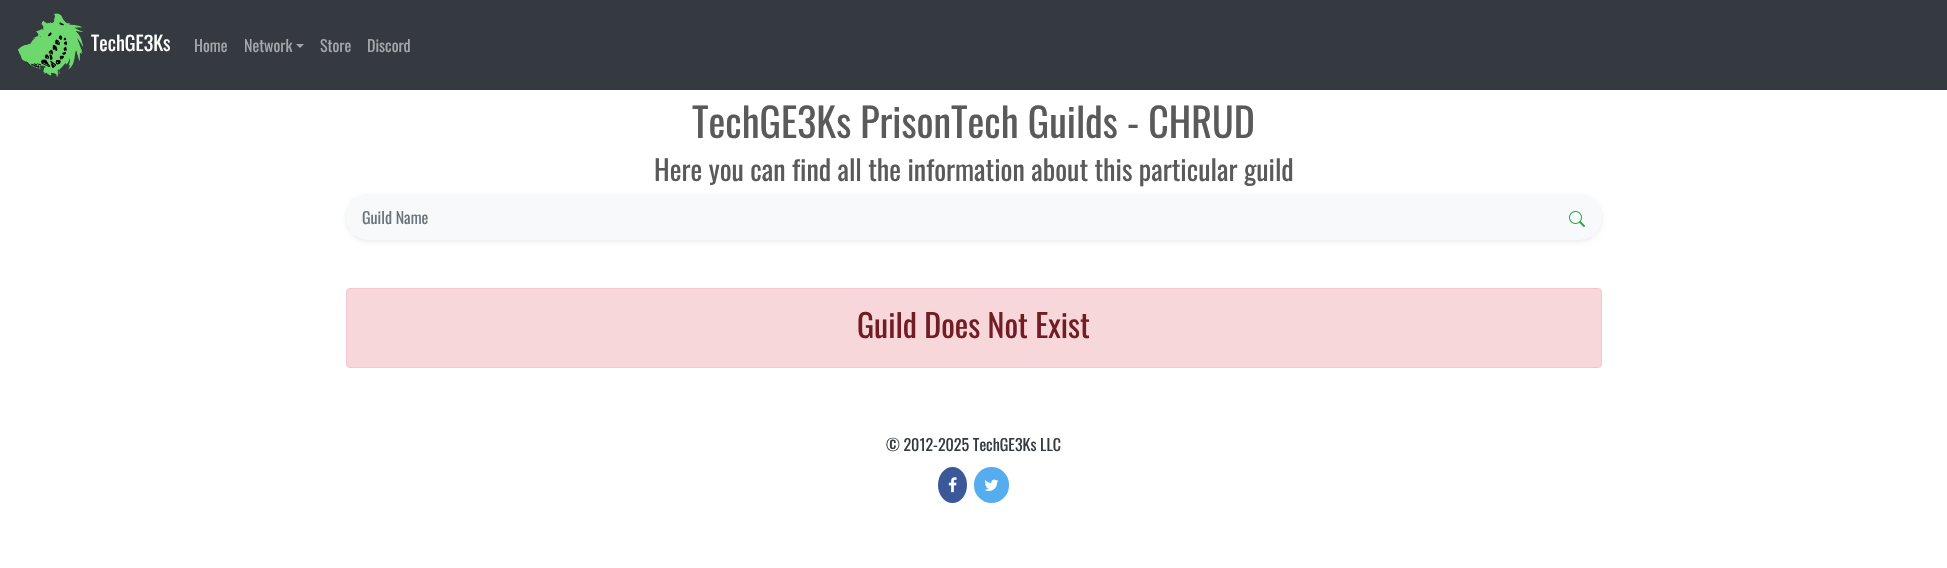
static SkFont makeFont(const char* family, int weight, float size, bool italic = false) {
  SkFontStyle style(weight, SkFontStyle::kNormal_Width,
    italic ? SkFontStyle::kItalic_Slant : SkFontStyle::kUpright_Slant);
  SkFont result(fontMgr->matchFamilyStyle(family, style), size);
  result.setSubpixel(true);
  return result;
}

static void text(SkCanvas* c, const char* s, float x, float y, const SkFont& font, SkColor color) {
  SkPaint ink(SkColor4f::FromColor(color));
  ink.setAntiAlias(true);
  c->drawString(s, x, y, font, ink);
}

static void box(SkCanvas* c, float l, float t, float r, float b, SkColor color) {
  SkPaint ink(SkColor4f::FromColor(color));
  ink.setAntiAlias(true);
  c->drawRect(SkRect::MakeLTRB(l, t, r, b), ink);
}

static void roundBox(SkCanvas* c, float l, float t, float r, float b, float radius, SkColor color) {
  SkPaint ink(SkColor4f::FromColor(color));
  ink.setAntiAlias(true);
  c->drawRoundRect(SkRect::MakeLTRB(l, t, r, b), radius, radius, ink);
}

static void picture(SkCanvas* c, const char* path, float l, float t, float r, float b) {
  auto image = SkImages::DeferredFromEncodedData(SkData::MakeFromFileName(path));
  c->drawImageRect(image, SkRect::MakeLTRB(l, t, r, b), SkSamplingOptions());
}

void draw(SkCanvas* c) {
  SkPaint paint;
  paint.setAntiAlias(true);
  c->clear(0xffffffff);
  box(c, 0, 0, 1947, 90, 0xff343a40);
  picture(c, "img_01.png", 17, 13, 84, 77);
  SkFont face1 = makeFont("Oswald", 400, 20);
  text(c, "TechGE3Ks", 91, 51, face1, 0xffffffff);
  SkFont face2 = makeFont("Oswald", 400, 16);
  text(c, "Home", 194, 52, face2, 0xffa4a6a9);
  text(c, "Network", 244, 52, face2, 0xffa4a6a9);
  paint.setColor(0xffa4a6a9);
  c->drawPath(SkPathBuilder().moveTo(296, 44).lineTo(304, 44).lineTo(300, 48).close().detach(), paint);
  text(c, "Store", 320, 52, face2, 0xffa4a6a9);
  text(c, "Discord", 367, 52, face2, 0xffa4a6a9);
  SkFont face3 = makeFont("Oswald", 400, 40);
  text(c, "TechGE3Ks PrisonTech Guilds - CHRUD", 692, 138, face3, 0xff5a5a5a);
  SkFont face4 = makeFont("Oswald", 400, 28);
  text(c, "Here you can find all the information about this particular guild", 654, 181, face4, 0xff5a5a5a);
  paint.setColor(0x12000000);
  paint.setMaskFilter(SkMaskFilter::MakeBlur(kNormal_SkBlurStyle, 2));
  c->drawRoundRect(SkRect::MakeLTRB(346, 196, 1602, 242), 23, 23, paint);
  paint.setMaskFilter(nullptr);
  roundBox(c, 346, 194, 1602, 240, 23, 0xfff8f9fa);
  paint.setColor(0xfff8f9fa);
  c->drawPath(SkPathBuilder().moveTo(354, 198).lineTo(1557, 198).lineTo(1557, 236).lineTo(354, 236).cubicTo(352, 236, 350, 234, 350, 232).lineTo(350, 202).cubicTo(350, 200, 352, 198, 354, 198).close().detach(), paint);
  text(c, "Guild Name", 362, 224, face2, 0xff6c757d);
  picture(c, "img_02.png", 1569, 211, 1585, 227);
  paint.setColor(0xfff8d7da);
  c->drawRoundRect(SkRect::MakeLTRB(346.5f, 288.5f, 1601.5f, 367.5f), 3.5f, 3.5f, paint);
  paint.setStyle(SkPaint::kStroke_Style);
  paint.setStrokeWidth(1);
  paint.setColor(0xfff5c6cb);
  c->drawRoundRect(SkRect::MakeLTRB(346.5f, 288.5f, 1601.5f, 367.5f), 3.5f, 3.5f, paint);
  SkFont face5 = makeFont("Oswald", 400, 32);
  text(c, "Guild Does Not Exist", 857, 338, face5, 0xff721c24);
  text(c, "© 2012-2025 TechGE3Ks LLC", 886, 451, face2, 0xff343a40);
  paint.setStyle(SkPaint::kFill_Style);
  paint.setColor(0xff3b5998);
  c->drawOval(SkRect::MakeLTRB(938, 467, 967, 503), paint);
  roundBox(c, 974, 467, 1009, 503, 17.5f, 0xff55acee);
  picture(c, "img_03.png", 948, 477, 957, 493);
  picture(c, "img_04.png", 984, 479, 999, 491);
}
